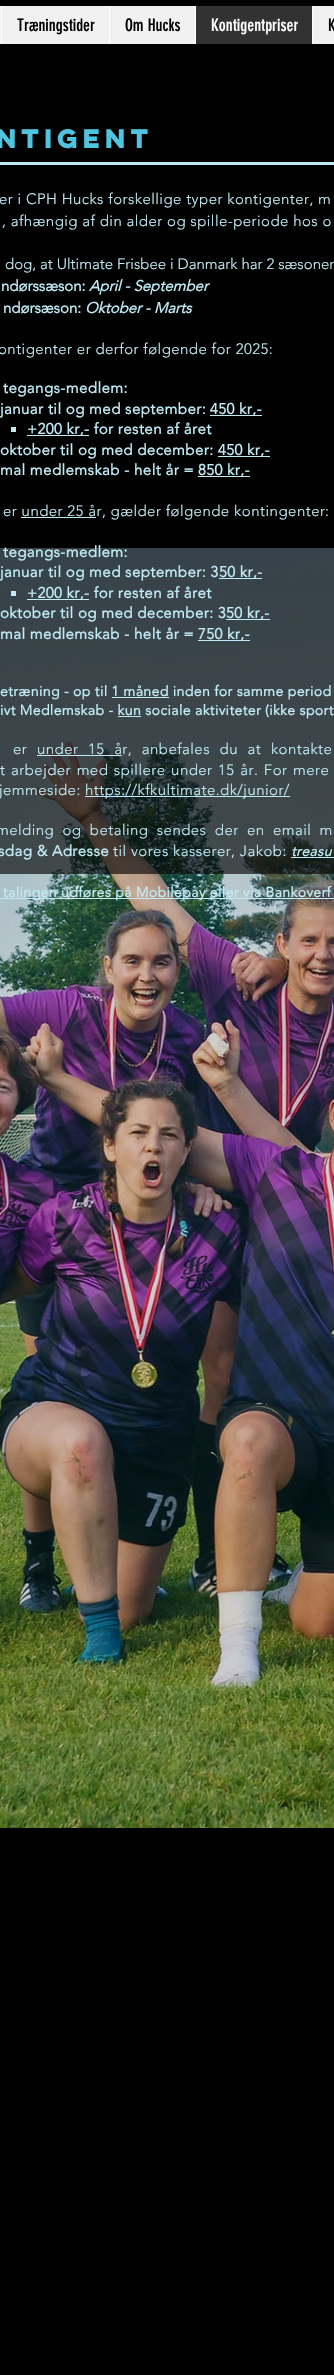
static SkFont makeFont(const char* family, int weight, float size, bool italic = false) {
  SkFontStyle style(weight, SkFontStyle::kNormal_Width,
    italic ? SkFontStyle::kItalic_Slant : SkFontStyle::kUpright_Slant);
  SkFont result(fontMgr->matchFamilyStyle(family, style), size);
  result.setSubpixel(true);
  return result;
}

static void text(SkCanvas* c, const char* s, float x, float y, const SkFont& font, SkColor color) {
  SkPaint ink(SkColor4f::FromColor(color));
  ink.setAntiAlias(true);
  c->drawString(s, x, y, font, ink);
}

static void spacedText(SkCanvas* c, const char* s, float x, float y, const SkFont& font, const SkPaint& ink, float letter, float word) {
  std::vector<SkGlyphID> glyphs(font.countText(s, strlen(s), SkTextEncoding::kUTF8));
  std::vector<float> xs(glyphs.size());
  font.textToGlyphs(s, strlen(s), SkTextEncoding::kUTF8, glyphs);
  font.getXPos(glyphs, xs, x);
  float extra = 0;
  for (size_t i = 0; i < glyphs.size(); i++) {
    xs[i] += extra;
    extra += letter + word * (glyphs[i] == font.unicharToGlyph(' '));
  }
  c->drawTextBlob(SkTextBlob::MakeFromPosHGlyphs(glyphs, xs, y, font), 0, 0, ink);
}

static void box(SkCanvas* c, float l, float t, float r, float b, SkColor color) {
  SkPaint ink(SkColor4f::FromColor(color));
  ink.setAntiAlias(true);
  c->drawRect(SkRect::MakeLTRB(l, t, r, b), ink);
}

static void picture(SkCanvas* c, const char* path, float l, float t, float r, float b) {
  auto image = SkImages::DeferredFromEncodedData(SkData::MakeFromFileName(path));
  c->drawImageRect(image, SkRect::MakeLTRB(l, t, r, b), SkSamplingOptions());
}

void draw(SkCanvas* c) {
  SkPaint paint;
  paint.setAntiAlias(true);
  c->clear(0xff010101);
  box(c, 0, 6, 334, 44, 0xfff1f1f1);
  box(c, 1, 6, 2, 44, 0xffffffff);
  SkFont face1 = makeFont("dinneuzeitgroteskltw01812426", 400, 17);
  text(c, "Træningstider", 17, 31, face1, 0xff000000);
  box(c, 109, 6, 110, 44, 0xffffffff);
  text(c, "Om Hucks", 125, 31, face1, 0xff000000);
  box(c, 196, 6, 312, 44, 0xff323232);
  box(c, 195, 6, 196, 44, 0xffffffff);
  text(c, "Kontigentpriser", 211, 31, face1, 0xffffffff);
  box(c, 312, 6, 313, 44, 0xffffffff);
  text(c, "K", 328, 31, face1, 0xff000000);
  SkFont face2 = makeFont("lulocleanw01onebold", 700, 24);
  text(c, "ntigent", -4, 148, face2, 0xff50c4de);
  box(c, 0, 162, 334, 165, 0xffc0eaf4);
  SkFont face3 = makeFont("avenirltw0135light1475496", 300, 15);
  paint.setColor(0xffc0eaf4);
  spacedText(c, "er i CPH Hucks forskellige typer kontigenter, m", -1, 204, face3, paint, 0.45f, 0);
  spacedText(c, ", afhængig af din alder og spille-periode hos o", 2, 226, face3, paint, 0.45f, 0);
  text(c, "dog, at Ultimate Frisbee i Danmark har 2 sæsoner", 5, 269, face3, 0xffc0eaf4);
  SkFont face4 = makeFont("avenirltw0135light1475496", 700, 15);
  text(c, "ndørssæson:", 1, 291, face4, 0xffc0eaf4);
  SkFont face5 = makeFont("avenirltw0135light1475496", 700, 15, true);
  text(c, "April - September", 89, 291, face5, 0xffc0eaf4);
  text(c, "ndørsæson:", 3, 313, face4, 0xffc0eaf4);
  text(c, "Oktober - Marts", 85, 313, face5, 0xffc0eaf4);
  spacedText(c, "ontigenter er derfor følgende for 2025:", -2, 354, face3, paint, 0.45f, 0);
  spacedText(c, "tegangs-medlem:", 3, 393, face4, paint, 0.45f, 0);
  spacedText(c, "januar til og med september:", 0, 414, face4, paint, 0.45f, 0);
  box(c, 210, 415, 262, 416, 0xffc0eaf4);
  spacedText(c, "450 kr,-", 210, 414, face4, paint, 0.45f, 0);
  box(c, 11, 427, 16, 432, 0xffc0eaf4);
  box(c, 27, 435, 89, 436, 0xffc0eaf4);
  spacedText(c, "+200 kr,- for resten af året", 27, 434, face4, paint, 0.45f, 0);
  spacedText(c, "oktober til og med december:", 0, 455, face4, paint, 0.45f, 0);
  box(c, 218, 456, 270, 457, 0xffc0eaf4);
  spacedText(c, "450 kr,-", 218, 455, face4, paint, 0.45f, 0);
  spacedText(c, "mal medlemskab - helt år =", 0, 475, face4, paint, 0.45f, 0);
  box(c, 198, 476, 250, 477, 0xffc0eaf4);
  spacedText(c, "850 kr,-", 198, 475, face4, paint, 0.45f, 0);
  spacedText(c, "er under 25 år, gælder følgende", 3, 516, face3, paint, 0.45f, 0);
  box(c, 21, 517, 96, 518, 0xffc0eaf4);
  spacedText(c, "kontingenter", 234, 516, face3, paint, 0.5f, 0);
  spacedText(c, ":", 325, 516, face3, paint, 0.45f, 0);
  picture(c, "img_01.png", 0, 548, 334, 1828);
  box(c, 0, 548, 334, 874, 0xa3010101);
  spacedText(c, "tegangs-medlem:", 3, 557, face4, paint, 0.45f, 0);
  spacedText(c, "januar til og med september: 3", 0, 577, face4, paint, 0.45f, 0);
  box(c, 219, 578, 262, 579, 0xffc0eaf4);
  spacedText(c, "50 kr,-", 219, 577, face4, paint, 0.45f, 0);
  box(c, 11, 591, 16, 596, 0xffc0eaf4);
  box(c, 27, 599, 89, 600, 0xffc0eaf4);
  spacedText(c, "+200 kr,- for resten af året", 27, 598, face4, paint, 0.45f, 0);
  spacedText(c, "oktober til og med december: 3", 0, 618, face4, paint, 0.45f, 0);
  box(c, 226, 619, 270, 620, 0xffc0eaf4);
  spacedText(c, "50 kr,-", 226, 618, face4, paint, 0.45f, 0);
  spacedText(c, "mal medlemskab - helt år =", 0, 639, face4, paint, 0.45f, 0);
  box(c, 198, 640, 250, 641, 0xffc0eaf4);
  spacedText(c, "750 kr,-", 198, 639, face4, paint, 0.45f, 0);
  SkFont face6 = makeFont("avenirltw0135light1475496", 700, 14);
  spacedText(c, "etræning - op til 1 måned inden for samme period", 0, 696, face6, paint, 0.42f, 0);
  box(c, 112, 697, 169, 698, 0xffc0eaf4);
  spacedText(c, "ivt Medlemskab - kun sociale aktiviteter (ikke sport", 0, 715, face6, paint, 0.42f, 0);
  box(c, 118, 716, 141, 717, 0xffc0eaf4);
  spacedText(c, "er", 13, 754, face3, paint, 0.45f, 5.25f);
  box(c, 37, 755, 122, 756, 0xffc0eaf4);
  spacedText(c, "under 15 år, anbefales du at kontakte", 37, 754, face3, paint, 0.45f, 5.25f);
  spacedText(c, "t arbejder med spillere under 15 år. For mere", 0, 775, face3, paint, 0.45f, 1.25f);
  spacedText(c, "jemmeside:", -1, 795, face3, paint, 0.45f, 0);
  box(c, 85, 796, 290, 797, 0xffc0eaf4);
  spacedText(c, "https://kfkultimate.dk/junior/", 85, 795, face3, paint, 0.45f, 0);
  spacedText(c, "melding og betaling sendes der en email m", -4, 835, face3, paint, 0.45f, 4);
  spacedText(c, "sdag & Adresse", -2, 856, face4, paint, 0.45f, 0);
  spacedText(c, "til vores kasserer, Jakob:", 113, 856, face3, paint, 0.45f, 0);
  SkFont face7 = makeFont("avenirltw0135light1475496", 700, 14, true);
  spacedText(c, "treasu", 291, 856, face7, paint, 0.42f, 0);
  box(c, 291, 857, 334, 858, 0xffc0eaf4);
  box(c, 0, 898, 334, 899, 0xffc0eaf4);
  spacedText(c, "talingen udføres på Mobilepay eller via Bankoverf", 3, 897, face6, paint, 0.42f, 0);
}
